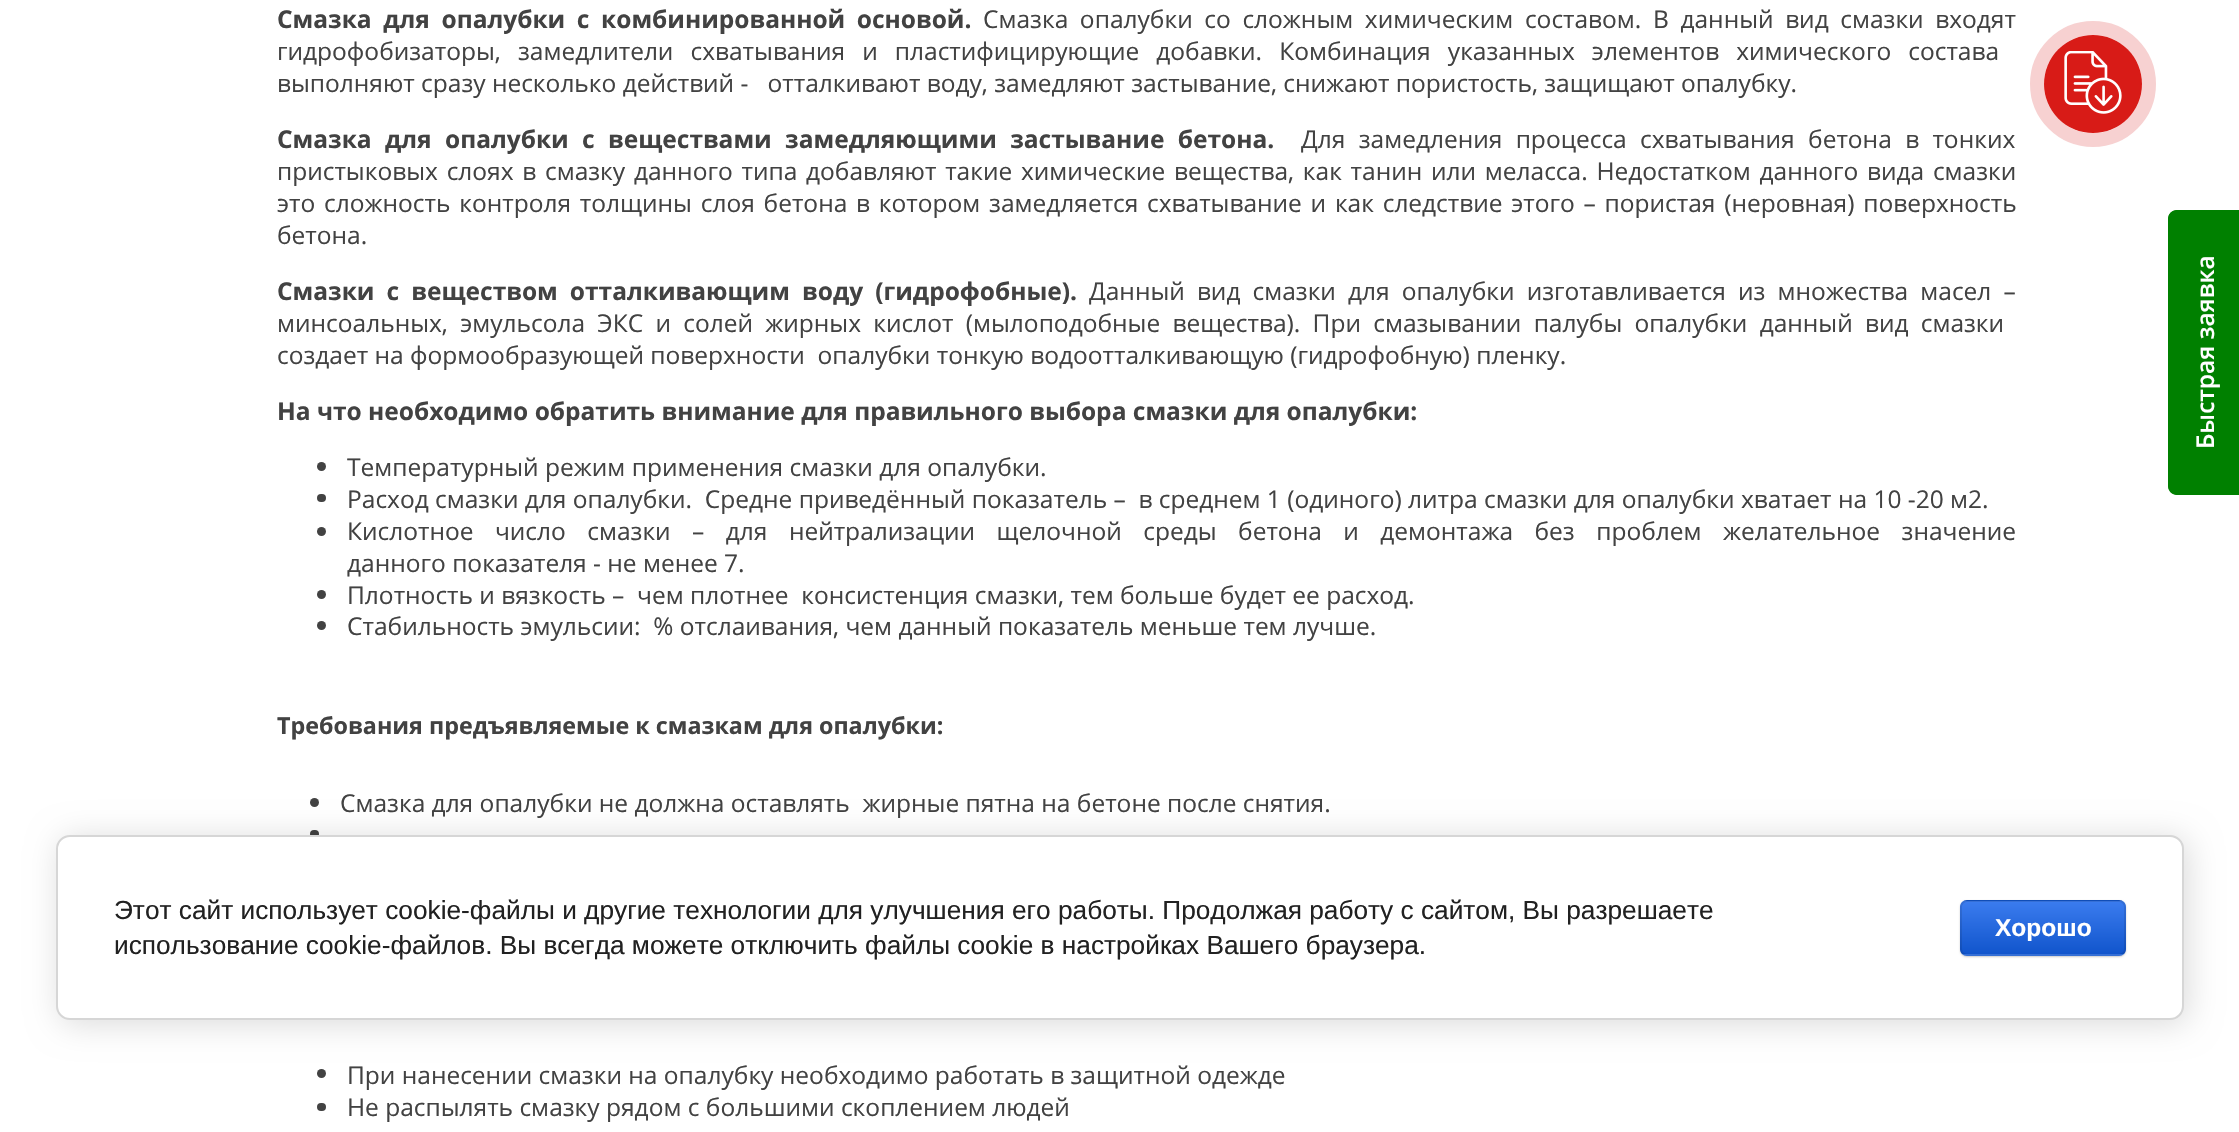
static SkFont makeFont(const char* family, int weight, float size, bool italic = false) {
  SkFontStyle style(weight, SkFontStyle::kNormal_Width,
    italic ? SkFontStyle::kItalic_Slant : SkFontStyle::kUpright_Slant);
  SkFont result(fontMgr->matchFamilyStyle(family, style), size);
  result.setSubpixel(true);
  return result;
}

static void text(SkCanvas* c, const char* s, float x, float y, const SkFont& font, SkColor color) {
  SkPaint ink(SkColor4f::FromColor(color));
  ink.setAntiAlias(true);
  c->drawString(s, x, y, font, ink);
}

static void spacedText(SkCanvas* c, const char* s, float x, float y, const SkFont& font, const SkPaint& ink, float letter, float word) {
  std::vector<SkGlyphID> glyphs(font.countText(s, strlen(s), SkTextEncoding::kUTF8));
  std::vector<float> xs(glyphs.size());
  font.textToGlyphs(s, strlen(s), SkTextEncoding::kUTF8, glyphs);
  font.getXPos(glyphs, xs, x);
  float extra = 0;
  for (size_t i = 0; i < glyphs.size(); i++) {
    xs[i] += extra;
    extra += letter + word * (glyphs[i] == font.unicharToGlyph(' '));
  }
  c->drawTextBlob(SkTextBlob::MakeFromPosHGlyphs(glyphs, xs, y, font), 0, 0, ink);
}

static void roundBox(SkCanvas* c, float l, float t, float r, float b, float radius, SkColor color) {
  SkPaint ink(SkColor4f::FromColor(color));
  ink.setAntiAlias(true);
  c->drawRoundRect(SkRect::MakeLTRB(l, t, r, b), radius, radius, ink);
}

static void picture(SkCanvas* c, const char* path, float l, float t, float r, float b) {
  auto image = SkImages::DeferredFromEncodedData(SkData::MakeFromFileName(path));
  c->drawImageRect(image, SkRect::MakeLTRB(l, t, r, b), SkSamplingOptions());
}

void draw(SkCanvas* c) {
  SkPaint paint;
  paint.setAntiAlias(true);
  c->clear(0xffffffff);
  SkFont face1 = makeFont("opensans", 700, 24.5f);
  paint.setColor(0xff424242);
  spacedText(c, "Смазка для опалубки с комбинированной основой.", 277, 28, face1, paint, 0, 5.25f);
  SkFont face2 = makeFont("opensans", 400, 24.5f);
  spacedText(c, "Смазка опалубки со сложным химическим составом. В данный вид смазки входят", 983, 28, face2, paint, 0, 5.25f);
  spacedText(c, "гидрофобизаторы, замедлители схватывания и пластифицирующие добавки. Комбинация указанных элементов химического состава", 277, 60, face2, paint, 0, 10.75f);
  text(c, "выполняют сразу несколько действий -   отталкивают воду, замедляют застывание, снижают пористость, защищают опалубку.", 277, 92, face2, 0xff424242);
  spacedText(c, "Смазка для опалубки с веществами замедляющими застывание бетона.", 277, 148, face1, paint, 0, 7);
  spacedText(c, "Для замедления процесса схватывания бетона в тонких", 1301, 148, face2, paint, 0, 7);
  spacedText(c, "пристыковых слоях в смазку данного типа добавляют такие химические вещества, как танин или меласса. Недостатком данного вида смазки", 277, 180, face2, paint, 0, 2.4f);
  spacedText(c, "это сложность контроля толщины слоя бетона в котором замедляется схватывание и как следствие этого – пористая (неровная) поверхность", 277, 212, face2, paint, 0, 2.4f);
  text(c, "бетона.", 277, 244, face2, 0xff424242);
  spacedText(c, "Смазки с веществом отталкивающим воду (гидрофобные).", 277, 300, face1, paint, 0, 5.75f);
  spacedText(c, "Данный вид смазки для опалубки изготавливается из множества масел –", 1089, 300, face2, paint, 0, 5.75f);
  spacedText(c, "минсоальных, эмульсола ЭКС и солей жирных кислот (мылоподобные вещества). При смазывании палубы опалубки данный вид смазки", 277, 332, face2, paint, 0, 5.9f);
  text(c, "создает на формообразующей поверхности  опалубки тонкую водоотталкивающую (гидрофобную) пленку.", 277, 364, face2, 0xff424242);
  text(c, "На что необходимо обратить внимание для правильного выбора смазки для опалубки:", 277, 420, face1, 0xff424242);
  c->drawCircle(321.5f, 466.5f, 4.5f, paint);
  text(c, "Температурный режим применения смазки для опалубки.", 347, 476, face2, 0xff424242);
  roundBox(c, 317, 494, 326, 502, 4, 0xff424242);
  text(c, "Расход смазки для опалубки.  Средне приведённый показатель –  в среднем 1 (одиного) литра смазки для опалубки хватает на 10 -20 м2.", 347, 508, face2, 0xff424242);
  c->drawCircle(321.5f, 531.5f, 4.5f, paint);
  spacedText(c, "Кислотное число смазки – для нейтрализации щелочной среды бетона и демонтажа без проблем желательное значение", 347, 540, face2, paint, 0, 15.1f);
  text(c, "данного показателя - не менее 7.", 347, 572, face2, 0xff424242);
  c->drawCircle(321.5f, 594.5f, 4.5f, paint);
  text(c, "Плотность и вязкость –  чем плотнее  консистенция смазки, тем больше будет ее расход.", 347, 604, face2, 0xff424242);
  c->drawCircle(321.5f, 625.5f, 4.5f, paint);
  text(c, "Стабильность эмульсии:  % отслаивания, чем данный показатель меньше тем лучше.", 347, 635, face2, 0xff424242);
  SkFont face3 = makeFont("opensans", 700, 23.3f);
  text(c, "Требования предъявляемые к смазкам для опалубки:", 277, 734, face3, 0xff424242);
  c->drawCircle(314.5f, 802.5f, 4.5f, paint);
  text(c, "Смазка для опалубки не должна оставлять  жирные пятна на бетоне после снятия.", 340, 812, face2, 0xff424242);
  roundBox(c, 310, 830, 319, 838, 4, 0xff424242);
  c->drawCircle(321.5f, 1073.5f, 4.5f, paint);
  text(c, "При нанесении смазки на опалубку необходимо работать в защитной одежде", 347, 1084, face2, 0xff424242);
  roundBox(c, 317, 1103, 326, 1111, 4, 0xff424242);
  text(c, "Не распылять смазку рядом с большими скоплением людей", 347, 1116, face2, 0xff424242);
  paint.setStyle(SkPaint::kStroke_Style);
  paint.setStrokeWidth(14);
  paint.setColor(0xfff7d1d1);
  c->drawCircle(2093, 84, 56, paint);
  paint.setStyle(SkPaint::kFill_Style);
  paint.setColor(0xffd81b17);
  c->drawCircle(2093, 84, 49, paint);
  picture(c, "img_01.png", 2064, 51, 2122, 114);
  paint.setColor(0xff008000);
  c->drawPath(SkPathBuilder().moveTo(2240, 495).lineTo(2177, 495).cubicTo(2172, 495, 2168, 491, 2168, 486).lineTo(2168, 219).cubicTo(2168, 214, 2172, 210, 2177, 210).lineTo(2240, 210).close().detach(), paint);
  paint.setStyle(SkPaint::kStroke_Style);
  paint.setStrokeWidth(1.8f);
  c->drawPath(SkPathBuilder().moveTo(2239, 494).lineTo(2177, 494).cubicTo(2172.5f, 494, 2169, 490, 2169, 486).lineTo(2169, 218.5f).cubicTo(2169, 214.5f, 2172.5f, 211, 2177, 211).lineTo(2239, 211).close().detach(), paint);
  SkFont face4 = makeFont("Open Sans", 600, 24.5f);
  c->save();
  c->rotate(-90, 2214, 449);
  text(c, "Быстрая заявка", 2214, 449, face4, 0xffffffff);
  c->restore();
  paint.setStyle(SkPaint::kFill_Style);
  paint.setColor(0x24000000);
  paint.setMaskFilter(SkMaskFilter::MakeBlur(kNormal_SkBlurStyle, 16));
  c->drawRoundRect(SkRect::MakeLTRB(60, 838, 2188, 1024), 14, 14, paint);
  paint.setMaskFilter(nullptr);
  paint.setColor(0xffffffff);
  c->drawRoundRect(SkRect::MakeLTRB(57, 836, 2183, 1019), 13, 13, paint);
  paint.setStyle(SkPaint::kStroke_Style);
  paint.setStrokeWidth(2);
  paint.setColor(0xffd6d6d6);
  c->drawRoundRect(SkRect::MakeLTRB(57, 836, 2183, 1019), 13, 13, paint);
  SkFont face5 = makeFont("Liberation Sans", 400, 26.25f);
  text(c, "Этот сайт использует cookie-файлы и другие технологии для улучшения его работы. Продолжая работу с сайтом, Вы разрешаете", 114, 919, face5, 0xff212121);
  text(c, "использование cookie-файлов. Вы всегда можете отключить файлы cookie в настройках Вашего браузера.", 114, 954, face5, 0xff212121);
  paint.setStyle(SkPaint::kFill_Style);
  paint.setColor(0x33000000);
  paint.setMaskFilter(SkMaskFilter::MakeBlur(kNormal_SkBlurStyle, 1));
  c->drawRoundRect(SkRect::MakeLTRB(1960, 901, 2126, 957), 7, 7, paint);
  paint.setMaskFilter(nullptr);
  c->save();
  c->clipPath(SkPathBuilder().moveTo(1967, 900).lineTo(2119, 900).cubicTo(2123, 900, 2126, 903, 2126, 907).lineTo(2126, 949).cubicTo(2126, 953, 2123, 956, 2119, 956).lineTo(1967, 956).cubicTo(1963, 956, 1960, 953, 1960, 949).lineTo(1960, 907).cubicTo(1960, 903, 1963, 900, 1967, 900).close().detach(), true);
  {
    const SkColor colors[] = {0xff3b7cef, 0xff1155cc};
    const float stops[] = {0, 1};
    const SkPoint ends[] = {{2043, 849}, {2043, 901}};
    paint.setShader(SkGradientShader::MakeLinear(ends, colors, stops, 2, SkTileMode::kClamp));
    paint.setAlpha(255);
  }
  c->drawRect(SkRect::MakeLTRB(1960, 900, 2126, 901), paint);
  {
    const SkColor colors[] = {0xff3b7cef, 0xff1155cc};
    const float stops[] = {0, 1};
    const SkPoint ends[] = {{2043, 901}, {2043, 954}};
    paint.setShader(SkGradientShader::MakeLinear(ends, colors, stops, 2, SkTileMode::kClamp));
    paint.setAlpha(255);
  }
  c->drawRect(SkRect::MakeLTRB(1960, 901, 2126, 954), paint);
  {
    const SkColor colors[] = {0xff3b7cef, 0xff1155cc};
    const float stops[] = {0, 1};
    const SkPoint ends[] = {{2043, 954}, {2043, 1006}};
    paint.setShader(SkGradientShader::MakeLinear(ends, colors, stops, 2, SkTileMode::kClamp));
    paint.setAlpha(255);
  }
  c->drawRect(SkRect::MakeLTRB(1960, 954, 2126, 956), paint);
  c->restore();
  paint.setStyle(SkPaint::kStroke_Style);
  paint.setShader(nullptr);
  paint.setColor(0x1a000000);
  c->drawRoundRect(SkRect::MakeLTRB(1961, 901, 2125, 955), 6, 6, paint);
  SkFont face6 = makeFont("Liberation Sans", 700, 24.5f);
  text(c, "Хорошо", 1995, 936, face6, 0xffffffff);
}
